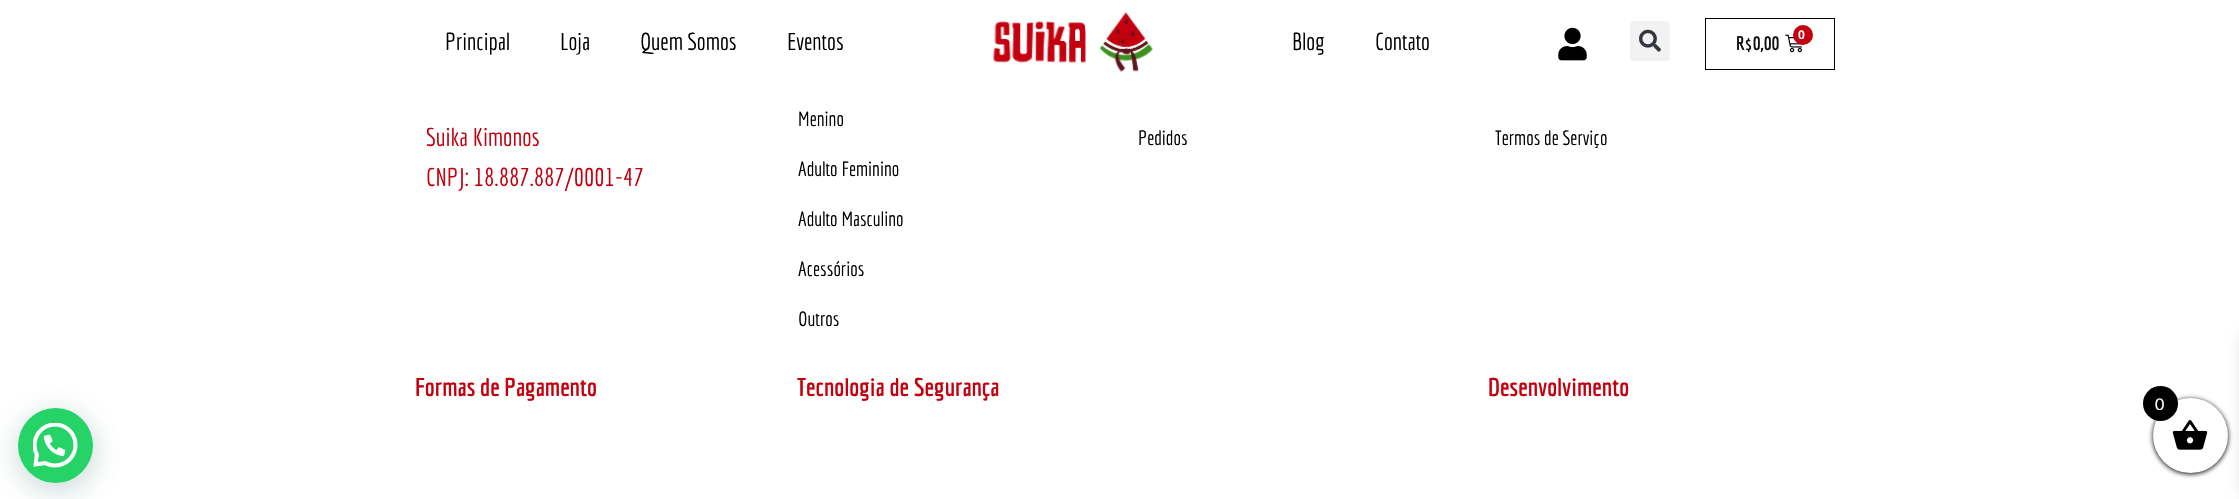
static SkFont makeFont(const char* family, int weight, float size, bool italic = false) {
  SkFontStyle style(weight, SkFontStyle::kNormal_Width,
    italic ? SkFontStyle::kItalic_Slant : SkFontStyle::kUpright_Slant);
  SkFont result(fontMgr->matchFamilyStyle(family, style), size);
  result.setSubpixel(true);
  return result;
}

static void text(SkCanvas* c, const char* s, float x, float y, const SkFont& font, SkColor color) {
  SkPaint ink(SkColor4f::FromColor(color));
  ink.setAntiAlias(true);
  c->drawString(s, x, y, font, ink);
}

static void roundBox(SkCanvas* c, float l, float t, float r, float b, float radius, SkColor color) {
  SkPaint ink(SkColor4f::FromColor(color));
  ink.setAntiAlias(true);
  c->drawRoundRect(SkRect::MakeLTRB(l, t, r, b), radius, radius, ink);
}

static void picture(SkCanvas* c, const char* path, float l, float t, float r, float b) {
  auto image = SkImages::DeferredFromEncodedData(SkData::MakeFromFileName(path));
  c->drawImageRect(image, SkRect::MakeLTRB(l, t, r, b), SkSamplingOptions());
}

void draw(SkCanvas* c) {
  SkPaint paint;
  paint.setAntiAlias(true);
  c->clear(0xffffffff);
  SkFont face1 = makeFont("Economica", 400, 23.75f);
  text(c, "Principal", 445, 50, face1, 0xff000000);
  text(c, "Loja", 560, 50, face1, 0xff000000);
  text(c, "Quem Somos", 640, 50, face1, 0xff000000);
  text(c, "Eventos", 787, 50, face1, 0xff000000);
  picture(c, "img_01.png", 993, 12, 1153, 72);
  text(c, "Blog", 1292, 50, face1, 0xff000000);
  text(c, "Contato", 1375, 50, face1, 0xff000000);
  picture(c, "img_02.png", 1558, 27, 1587, 61);
  roundBox(c, 1630, 21, 1670, 61, 4, 0xfff2f2f2);
  picture(c, "img_03.png", 1639, 29, 1661, 52);
  paint.setStyle(SkPaint::kStroke_Style);
  paint.setStrokeWidth(1);
  paint.setColor(0xff020101);
  c->drawRect(SkRect::MakeLTRB(1705.5f, 18.5f, 1834.5f, 69.5f), paint);
  picture(c, "img_04.png", 1785, 34, 1802, 53);
  paint.setStyle(SkPaint::kFill_Style);
  paint.setColor(0xffc4000f);
  c->drawCircle(1803, 35, 10, paint);
  SkFont face2 = makeFont("Roboto", 600, 12);
  text(c, "0", 1798, 39, face2, 0xffffffff);
  SkFont face3 = makeFont("Economica", 700, 19);
  text(c, "R$0,00", 1736, 50, face3, 0xff111111);
  SkFont face4 = makeFont("Economica", 400, 25);
  text(c, "Suika Kimonos", 426, 146, face4, 0xffc4000f);
  text(c, "CNPJ: 18.887.887/0001-47", 426, 186, face4, 0xffc4000f);
  SkFont face5 = makeFont("Economica", 400, 20);
  text(c, "Menino", 798, 126, face5, 0xff000000);
  text(c, "Adulto Feminino", 798, 176, face5, 0xff000000);
  text(c, "Adulto Masculino", 798, 226, face5, 0xff000000);
  text(c, "Acessórios", 798, 276, face5, 0xff000000);
  text(c, "Outros", 798, 326, face5, 0xff000000);
  text(c, "Pedidos", 1138, 145, face5, 0xff000000);
  text(c, "Termos de Serviço", 1495, 145, face5, 0xff000000);
  SkFont face6 = makeFont("Economica", 700, 25);
  text(c, "Formas de Pagamento", 415, 396, face6, 0xffc4000f);
  text(c, "Tecnologia de Segurança", 797, 396, face6, 0xffc4000f);
  text(c, "Desenvolvimento", 1488, 396, face6, 0xffc4000f);
  paint.setColor(0x3d075e54);
  paint.setMaskFilter(SkMaskFilter::MakeBlur(kNormal_SkBlurStyle, 15));
  c->drawRoundRect(SkRect::MakeLTRB(19, 415, 94, 490), 37.5f, 37.5f, paint);
  paint.setMaskFilter(nullptr);
  paint.setColor(0xff25d366);
  c->drawCircle(55.5f, 445.5f, 37.5f, paint);
  picture(c, "img_05.png", 33, 423, 78, 468);
  paint.setColor(0xff000000);
  paint.setMaskFilter(SkMaskFilter::MakeBlur(kNormal_SkBlurStyle, 2.5f));
  c->drawRoundRect(SkRect::MakeLTRB(2153, 399, 2228, 474), 37.5f, 37.5f, paint);
  paint.setMaskFilter(nullptr);
  paint.setColor(0x1a000000);
  paint.setMaskFilter(SkMaskFilter::MakeBlur(kNormal_SkBlurStyle, 6));
  c->drawRect(SkRect::MakeLTRB(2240, 336, 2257, 494), paint);
  paint.setMaskFilter(nullptr);
  paint.setColor(0xffffffff);
  c->drawCircle(2190.5f, 435.5f, 37.5f, paint);
  picture(c, "img_06.png", 2172, 420, 2208, 450);
  paint.setColor(0xff000000);
  c->drawCircle(2160.5f, 403.5f, 17.5f, paint);
  SkFont face7 = makeFont("Lato", 400, 16);
  text(c, "0", 2155, 410, face7, 0xffffffff);
}
